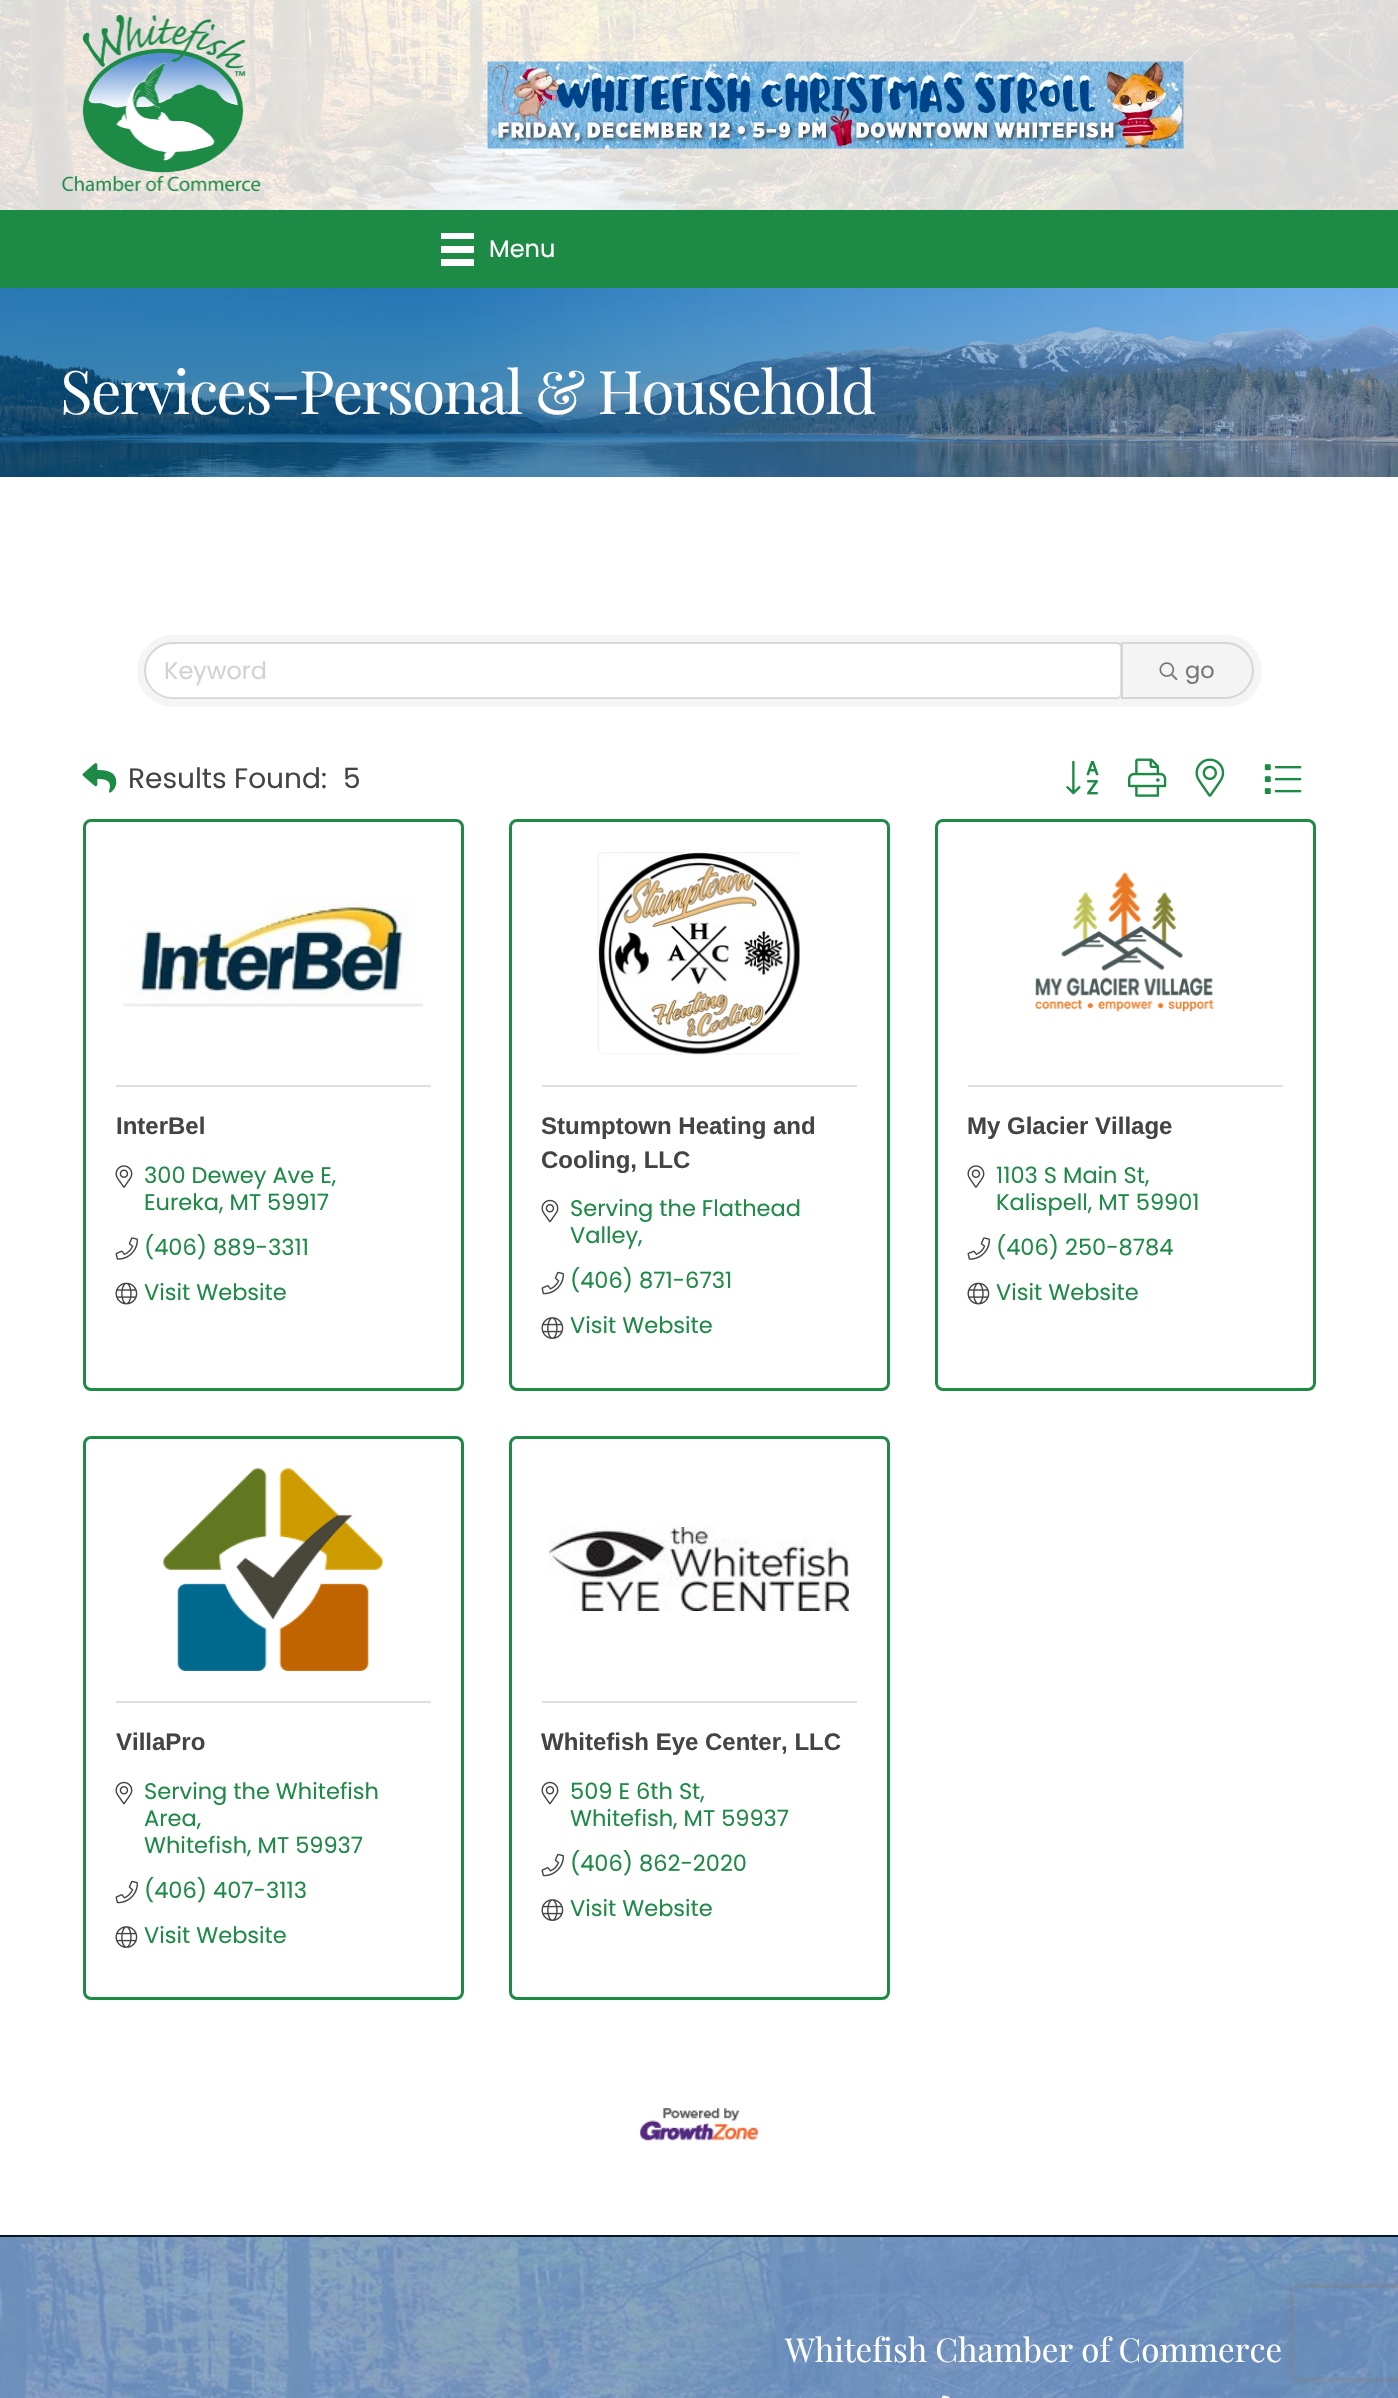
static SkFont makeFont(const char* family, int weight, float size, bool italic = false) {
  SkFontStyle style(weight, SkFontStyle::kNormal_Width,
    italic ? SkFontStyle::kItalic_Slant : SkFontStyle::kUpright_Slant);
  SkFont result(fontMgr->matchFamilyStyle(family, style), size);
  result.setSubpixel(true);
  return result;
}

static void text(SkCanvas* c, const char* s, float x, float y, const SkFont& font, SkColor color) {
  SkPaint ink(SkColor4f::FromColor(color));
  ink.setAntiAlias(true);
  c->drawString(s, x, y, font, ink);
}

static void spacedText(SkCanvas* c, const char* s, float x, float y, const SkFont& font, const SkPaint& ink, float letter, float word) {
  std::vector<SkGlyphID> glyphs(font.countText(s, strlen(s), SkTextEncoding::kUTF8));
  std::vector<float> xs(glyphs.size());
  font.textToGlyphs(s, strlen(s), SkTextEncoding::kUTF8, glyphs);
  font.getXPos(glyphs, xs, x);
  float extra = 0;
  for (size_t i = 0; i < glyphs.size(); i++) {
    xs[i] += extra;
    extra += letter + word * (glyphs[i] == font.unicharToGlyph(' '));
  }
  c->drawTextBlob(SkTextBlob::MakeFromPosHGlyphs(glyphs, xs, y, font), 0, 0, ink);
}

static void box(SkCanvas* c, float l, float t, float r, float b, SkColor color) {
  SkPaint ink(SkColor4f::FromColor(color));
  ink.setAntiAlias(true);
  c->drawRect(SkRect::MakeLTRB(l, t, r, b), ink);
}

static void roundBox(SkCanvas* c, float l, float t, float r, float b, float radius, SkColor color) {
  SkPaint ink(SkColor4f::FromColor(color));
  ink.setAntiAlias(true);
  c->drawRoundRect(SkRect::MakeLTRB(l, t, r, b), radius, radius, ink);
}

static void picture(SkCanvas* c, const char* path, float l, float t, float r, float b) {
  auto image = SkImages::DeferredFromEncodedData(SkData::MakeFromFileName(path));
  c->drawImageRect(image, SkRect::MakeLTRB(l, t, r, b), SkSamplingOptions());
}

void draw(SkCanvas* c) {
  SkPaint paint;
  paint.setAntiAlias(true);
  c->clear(0xffffffff);
  picture(c, "img_01.png", 0, 0, 1398, 210);
  picture(c, "img_02.png", 62, 15, 261, 192);
  picture(c, "img_03.png", 487, 61, 1184, 149);
  box(c, 0, 210, 1398, 288, 0xff1d8a46);
  box(c, 441, 233, 474, 239, 0xffffffff);
  box(c, 441, 246, 474, 253, 0xffffffff);
  box(c, 441, 259, 474, 266, 0xffffffff);
  SkFont face1 = makeFont("Poppins", 400, 24);
  text(c, "Menu", 489, 257, face1, 0xffffffff);
  picture(c, "img_04.png", 0, 288, 1398, 477);
  SkFont face2 = makeFont("Playfair Display", 400, 60);
  paint.setColor(0xffffffff);
  spacedText(c, "Services-Personal & Household", 60, 414, face2, paint, -1.5f, 0);
  roundBox(c, 137, 635, 1262, 707, 36, 0xfff5f5f5);
  c->drawPath(SkPathBuilder().moveTo(173, 644).lineTo(1118, 644).cubicTo(1119.5f, 644, 1121, 645.5f, 1121, 647).lineTo(1121, 695).cubicTo(1121, 696.5f, 1119.5f, 698, 1118, 698).lineTo(173, 698).cubicTo(158, 698, 146, 686, 146, 671).cubicTo(146, 656, 158, 644, 173, 644).close().detach(), paint);
  paint.setStyle(SkPaint::kStroke_Style);
  paint.setStrokeWidth(2);
  paint.setColor(0x1f000000);
  c->drawPath(SkPathBuilder().moveTo(172.5f, 643).lineTo(1117, 643).cubicTo(1119, 643, 1121, 645, 1121, 647).lineTo(1121, 694).cubicTo(1121, 696, 1119, 698, 1117, 698).lineTo(172.5f, 698).cubicTo(157.5f, 698, 145, 685.5f, 145, 670.5f).cubicTo(145, 655.5f, 157.5f, 643, 172.5f, 643).close().detach(), paint);
  text(c, "Keyword", 164, 679, face1, 0xffd2d2d2);
  paint.setStyle(SkPaint::kFill_Style);
  paint.setColor(0xfff4f4f4);
  c->drawPath(SkPathBuilder().moveTo(1122, 643).lineTo(1225.5f, 643).cubicTo(1240.5f, 643, 1253, 655.5f, 1253, 670.5f).cubicTo(1253, 685.5f, 1240.5f, 698, 1225.5f, 698).lineTo(1122, 698).close().detach(), paint);
  paint.setStyle(SkPaint::kStroke_Style);
  paint.setColor(0xffd6d6d6);
  c->drawPath(SkPathBuilder().moveTo(1122, 643).lineTo(1225.5f, 643).cubicTo(1240.5f, 643, 1253, 655.5f, 1253, 670.5f).cubicTo(1253, 685.5f, 1240.5f, 698, 1225.5f, 698).lineTo(1122, 698).close().detach(), paint);
  picture(c, "img_05.png", 1159, 662, 1178, 681);
  SkFont face3 = makeFont("Poppins", 400, 22.5f);
  text(c, "go", 1185, 678, face3, 0xff777777);
  picture(c, "img_06.png", 82, 763, 117, 793);
  SkFont face4 = makeFont("Poppins", 400, 28);
  text(c, "Results Found:", 128, 788, face4, 0xff444444);
  text(c, "5", 343, 788, face4, 0xff444444);
  picture(c, "img_07.png", 1066, 760, 1099, 795);
  picture(c, "img_08.png", 1128, 758, 1167, 797);
  picture(c, "img_09.png", 1195, 758, 1225, 797);
  picture(c, "img_10.png", 1264, 764, 1302, 795);
  paint.setStrokeWidth(3);
  paint.setColor(0xff1d8a46);
  c->drawRoundRect(SkRect::MakeLTRB(84.5f, 820.5f, 462.5f, 1389.5f), 6.5f, 6.5f, paint);
  picture(c, "img_11.png", 123, 898, 423, 1007);
  box(c, 116, 1085, 431, 1087, 0xffdfdfdf);
  SkFont face5 = makeFont("Liberation Sans", 700, 24);
  text(c, "InterBel", 116, 1134, face5, 0xff444444);
  picture(c, "img_12.png", 115, 1165, 133, 1188);
  text(c, "300 Dewey Ave E,", 144, 1183, face3, 0xff1d8a46);
  text(c, "Eureka, MT 59917", 144, 1210, face3, 0xff1d8a46);
  picture(c, "img_13.png", 115, 1237, 138, 1260);
  text(c, "(406) 889-3311", 144, 1255, face3, 0xff1d8a46);
  picture(c, "img_14.png", 115, 1282, 138, 1305);
  text(c, "Visit Website", 144, 1300, face3, 0xff1d8a46);
  c->drawRoundRect(SkRect::MakeLTRB(510.5f, 820.5f, 888.5f, 1389.5f), 6.5f, 6.5f, paint);
  picture(c, "img_15.png", 597, 852, 800, 1055);
  box(c, 542, 1085, 857, 1087, 0xffdfdfdf);
  text(c, "Stumptown Heating and", 541, 1134, face5, 0xff444444);
  text(c, "Cooling, LLC", 541, 1168, face5, 0xff444444);
  picture(c, "img_16.png", 541, 1199, 559, 1223);
  text(c, "Serving the Flathead", 570, 1216, face3, 0xff1d8a46);
  text(c, "Valley,", 570, 1243, face3, 0xff1d8a46);
  picture(c, "img_17.png", 541, 1271, 565, 1295);
  text(c, "(406) 871-6731", 570, 1288, face3, 0xff1d8a46);
  picture(c, "img_18.png", 541, 1317, 564, 1339);
  text(c, "Visit Website", 570, 1333, face3, 0xff1d8a46);
  c->drawRoundRect(SkRect::MakeLTRB(936.5f, 820.5f, 1314.5f, 1389.5f), 6.5f, 6.5f, paint);
  picture(c, "img_19.png", 1035, 872, 1214, 1012);
  box(c, 968, 1085, 1283, 1087, 0xffdfdfdf);
  text(c, "My Glacier Village", 967, 1134, face5, 0xff444444);
  picture(c, "img_12.png", 967, 1165, 985, 1188);
  text(c, "1103 S Main St,", 996, 1183, face3, 0xff1d8a46);
  text(c, "Kalispell, MT 59901", 996, 1210, face3, 0xff1d8a46);
  picture(c, "img_13.png", 967, 1237, 990, 1260);
  text(c, "(406) 250-8784", 996, 1255, face3, 0xff1d8a46);
  picture(c, "img_14.png", 967, 1282, 990, 1305);
  text(c, "Visit Website", 996, 1300, face3, 0xff1d8a46);
  c->drawRoundRect(SkRect::MakeLTRB(84.5f, 1437.5f, 462.5f, 1998.5f), 6.5f, 6.5f, paint);
  picture(c, "img_20.png", 163, 1468, 383, 1671);
  box(c, 116, 1701, 431, 1703, 0xffdfdfdf);
  text(c, "VillaPro", 116, 1750, face5, 0xff444444);
  picture(c, "img_16.png", 115, 1781, 133, 1805);
  text(c, "Serving the Whitefish", 144, 1799, face3, 0xff1d8a46);
  text(c, "Area,", 144, 1826, face3, 0xff1d8a46);
  text(c, "Whitefish, MT 59937", 144, 1853, face3, 0xff1d8a46);
  picture(c, "img_17.png", 115, 1880, 139, 1904);
  text(c, "(406) 407-3113", 144, 1898, face3, 0xff1d8a46);
  picture(c, "img_18.png", 115, 1926, 138, 1948);
  text(c, "Visit Website", 144, 1943, face3, 0xff1d8a46);
  c->drawRoundRect(SkRect::MakeLTRB(510.5f, 1437.5f, 888.5f, 1998.5f), 6.5f, 6.5f, paint);
  picture(c, "img_21.png", 549, 1527, 849, 1611);
  box(c, 542, 1701, 857, 1703, 0xffdfdfdf);
  text(c, "Whitefish Eye Center, LLC", 541, 1750, face5, 0xff444444);
  picture(c, "img_16.png", 541, 1781, 559, 1805);
  text(c, "509 E 6th St,", 570, 1799, face3, 0xff1d8a46);
  text(c, "Whitefish, MT 59937", 570, 1826, face3, 0xff1d8a46);
  picture(c, "img_17.png", 541, 1853, 565, 1877);
  text(c, "(406) 862-2020", 570, 1871, face3, 0xff1d8a46);
  picture(c, "img_18.png", 541, 1899, 564, 1921);
  text(c, "Visit Website", 570, 1916, face3, 0xff1d8a46);
  picture(c, "img_22.png", 640, 2108, 758, 2141);
  picture(c, "img_23.png", 0, 2237, 1398, 2398);
  box(c, 0, 2235, 1398, 2237, 0xff051622);
  c->save();
  c->clipPath(SkPathBuilder(SkPathFillType::kEvenOdd).moveTo(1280, 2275).lineTo(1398, 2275).lineTo(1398, 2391).lineTo(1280, 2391).close().moveTo(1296, 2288).lineTo(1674, 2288).cubicTo(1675.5f, 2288, 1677, 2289.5f, 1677, 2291).lineTo(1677, 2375).cubicTo(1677, 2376.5f, 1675.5f, 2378, 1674, 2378).lineTo(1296, 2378).cubicTo(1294.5f, 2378, 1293, 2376.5f, 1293, 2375).lineTo(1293, 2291).cubicTo(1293, 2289.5f, 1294.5f, 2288, 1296, 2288).close().detach(), true);
  paint.setStyle(SkPaint::kFill_Style);
  paint.setColor(0xff808080);
  paint.setMaskFilter(SkMaskFilter::MakeBlur(kNormal_SkBlurStyle, 4));
  c->drawRoundRect(SkRect::MakeLTRB(1293, 2288, 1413, 2378), 3, 3, paint);
  paint.setMaskFilter(nullptr);
  c->restore();
  SkFont face6 = makeFont("Playfair Display", 400, 33);
  text(c, "Whitefish Chamber of Commerce", 785, 2362, face6, 0xffffffff);
  picture(c, "img_24.png", 941, 2395, 950, 2398);
}
